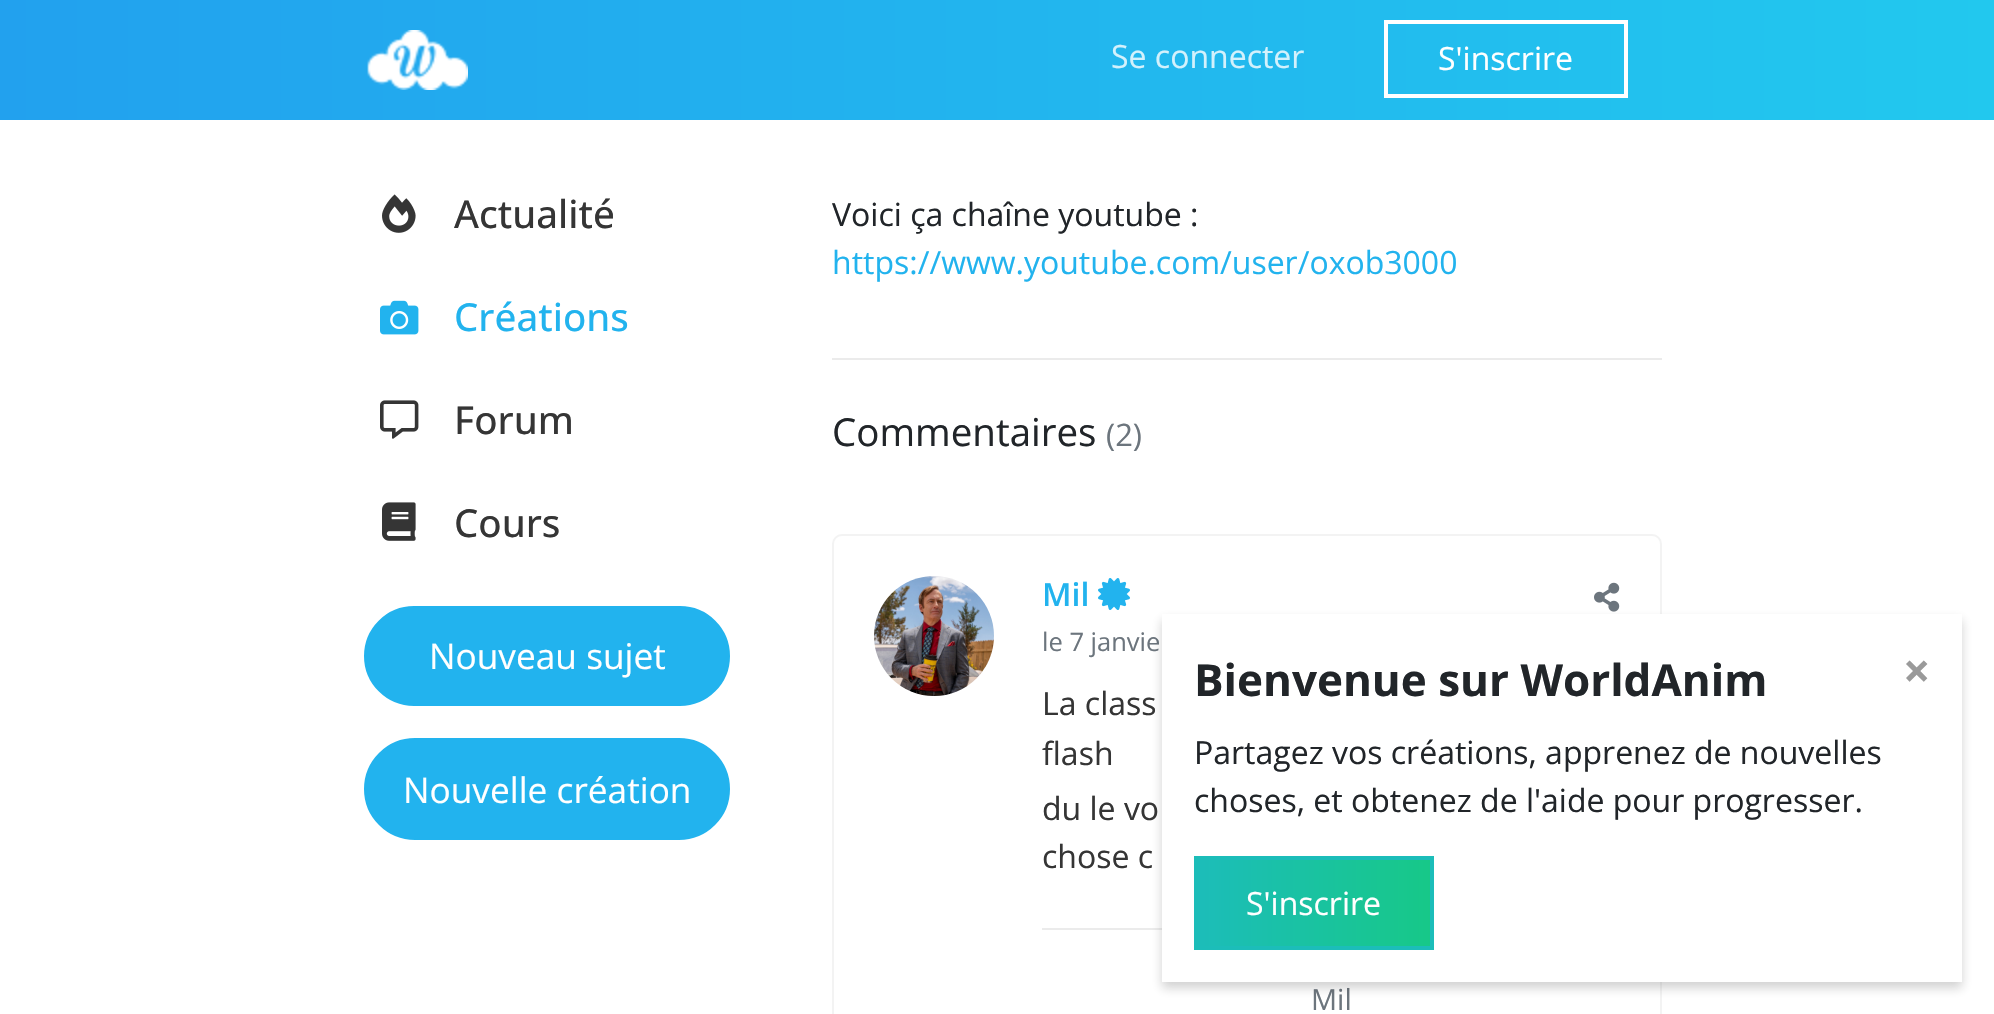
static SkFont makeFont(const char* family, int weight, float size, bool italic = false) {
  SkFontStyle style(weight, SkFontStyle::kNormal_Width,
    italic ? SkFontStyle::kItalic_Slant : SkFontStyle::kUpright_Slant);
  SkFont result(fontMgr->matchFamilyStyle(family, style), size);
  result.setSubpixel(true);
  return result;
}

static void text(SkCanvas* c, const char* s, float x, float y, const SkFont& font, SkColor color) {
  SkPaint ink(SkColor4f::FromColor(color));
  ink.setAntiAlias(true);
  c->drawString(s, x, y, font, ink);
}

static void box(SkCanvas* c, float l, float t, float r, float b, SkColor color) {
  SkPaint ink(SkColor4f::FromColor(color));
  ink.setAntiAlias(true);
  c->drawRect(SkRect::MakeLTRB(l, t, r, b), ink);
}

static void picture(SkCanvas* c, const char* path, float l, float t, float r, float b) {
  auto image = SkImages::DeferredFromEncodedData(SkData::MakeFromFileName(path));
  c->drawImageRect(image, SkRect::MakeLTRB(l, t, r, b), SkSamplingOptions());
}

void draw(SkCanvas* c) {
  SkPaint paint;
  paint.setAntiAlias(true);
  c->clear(0xffffffff);
  {
    const SkColor colors[] = {0xff22a1ee, 0xff22c8ee};
    const float stops[] = {0, 1};
    const SkPoint ends[] = {{0, 60}, {1994, 60}};
    paint.setShader(SkGradientShader::MakeLinear(ends, colors, stops, 2, SkTileMode::kClamp));
    paint.setAlpha(255);
  }
  c->drawRect(SkRect::MakeLTRB(0, 0, 1994, 120), paint);
  picture(c, "img_01.png", 367, 30, 468, 90);
  SkFont face1 = makeFont("Open Sans", 400, 32);
  text(c, "Se connecter", 1111, 68, face1, 0xffd3f1fc);
  paint.setStyle(SkPaint::kStroke_Style);
  paint.setStrokeWidth(4);
  paint.setShader(nullptr);
  paint.setColor(0xffffffff);
  c->drawRect(SkRect::MakeLTRB(1386, 22, 1626, 96), paint);
  text(c, "S'inscrire", 1438, 70, face1, 0xffffffff);
  picture(c, "img_02.png", 382, 194, 416, 233);
  SkFont face2 = makeFont("Open Sans", 500, 38.5f);
  text(c, "Actualité", 454, 228, face2, 0xff353535);
  picture(c, "img_03.png", 380, 300, 419, 335);
  text(c, "Créations", 454, 331, face2, 0xff22b3ee);
  picture(c, "img_04.png", 380, 400, 419, 439);
  text(c, "Forum", 454, 434, face2, 0xff353535);
  picture(c, "img_05.png", 382, 502, 416, 541);
  text(c, "Cours", 454, 537, face2, 0xff353535);
  paint.setStyle(SkPaint::kFill_Style);
  paint.setColor(0xff22b3ee);
  c->drawRoundRect(SkRect::MakeLTRB(365, 607, 729, 705), 49, 49, paint);
  paint.setStyle(SkPaint::kStroke_Style);
  paint.setStrokeWidth(2);
  c->drawRoundRect(SkRect::MakeLTRB(365, 607, 729, 705), 49, 49, paint);
  SkFont face3 = makeFont("Open Sans", 400, 35.25f);
  text(c, "Nouveau sujet", 429, 669, face3, 0xffffffff);
  paint.setStyle(SkPaint::kFill_Style);
  c->drawRoundRect(SkRect::MakeLTRB(365, 739, 729, 839), 50, 50, paint);
  paint.setStyle(SkPaint::kStroke_Style);
  c->drawRoundRect(SkRect::MakeLTRB(365, 739, 729, 839), 50, 50, paint);
  text(c, "Nouvelle création", 403, 803, face3, 0xffffffff);
  text(c, "Voici ça chaîne youtube :", 832, 226, face1, 0xff212529);
  text(c, "https://www.youtube.com/user/oxob3000", 832, 274, face1, 0xff22b3ee);
  box(c, 832, 358, 1662, 360, 0xffebebeb);
  SkFont face4 = makeFont("Open Sans", 400, 38.5f);
  text(c, "Commentaires", 832, 446, face4, 0xff212529);
  SkFont face5 = makeFont("Open Sans", 400, 31);
  text(c, "(2)", 1106, 446, face5, 0xff6c757d);
  paint.setColor(0xfff3f3f3);
  c->drawRoundRect(SkRect::MakeLTRB(833, 535, 1661, 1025), 9, 9, paint);
  picture(c, "img_06.png", 874, 576, 994, 696);
  SkFont face6 = makeFont("Open Sans", 600, 32);
  text(c, "Mil", 1042, 606, face6, 0xff22b3ee);
  picture(c, "img_07.png", 1098, 578, 1130, 610);
  picture(c, "img_08.png", 1594, 582, 1620, 612);
  SkFont face7 = makeFont("Open Sans", 400, 25.5f);
  text(c, "le 7 janvie", 1042, 651, face7, 0xff6c757d);
  text(c, "La class", 1042, 715, face1, 0xff353535);
  text(c, "flash", 1042, 765, face1, 0xff353535);
  text(c, "du le vo", 1042, 820, face1, 0xff353535);
  text(c, "chose c", 1042, 868, face1, 0xff353535);
  box(c, 1042, 928, 1162, 930, 0xffebebeb);
  SkFont face8 = makeFont("Open Sans", 400, 29);
  text(c, "Mil", 1311, 1010, face8, 0xff6c757d);
  paint.setStyle(SkPaint::kFill_Style);
  paint.setColor(0x33191919);
  paint.setMaskFilter(SkMaskFilter::MakeBlur(kNormal_SkBlurStyle, 5));
  c->drawRect(SkRect::MakeLTRB(1162, 620, 1962, 988), paint);
  paint.setMaskFilter(nullptr);
  box(c, 1162, 614, 1962, 982, 0xffffffff);
  SkFont face9 = makeFont("Open Sans", 700, 44);
  text(c, "Bienvenue sur WorldAnim", 1194, 696, face9, 0xff212529);
  SkFont face10 = makeFont("Open Sans", 700, 48);
  text(c, "×", 1903, 688, face10, 0xff9a9a9a);
  text(c, "Partagez vos créations, apprenez de nouvelles", 1194, 764, face1, 0xff212529);
  text(c, "choses, et obtenez de l'aide pour progresser.", 1194, 812, face1, 0xff212529);
  {
    const SkColor colors[] = {0xff1cbdb9, 0xff17c888};
    const float stops[] = {0, 1};
    const SkPoint ends[] = {{1198, 903}, {1430, 903}};
    paint.setShader(SkGradientShader::MakeLinear(ends, colors, stops, 2, SkTileMode::kClamp));
    paint.setAlpha(255);
  }
  c->drawRect(SkRect::MakeLTRB(1198, 860, 1430, 946), paint);
  paint.setStyle(SkPaint::kStroke_Style);
  paint.setStrokeWidth(4);
  paint.setShader(nullptr);
  paint.setColor(0xff1cbdb9);
  c->drawRect(SkRect::MakeLTRB(1196, 858, 1432, 948), paint);
  text(c, "S'inscrire", 1246, 915, face1, 0xffffffff);
}
